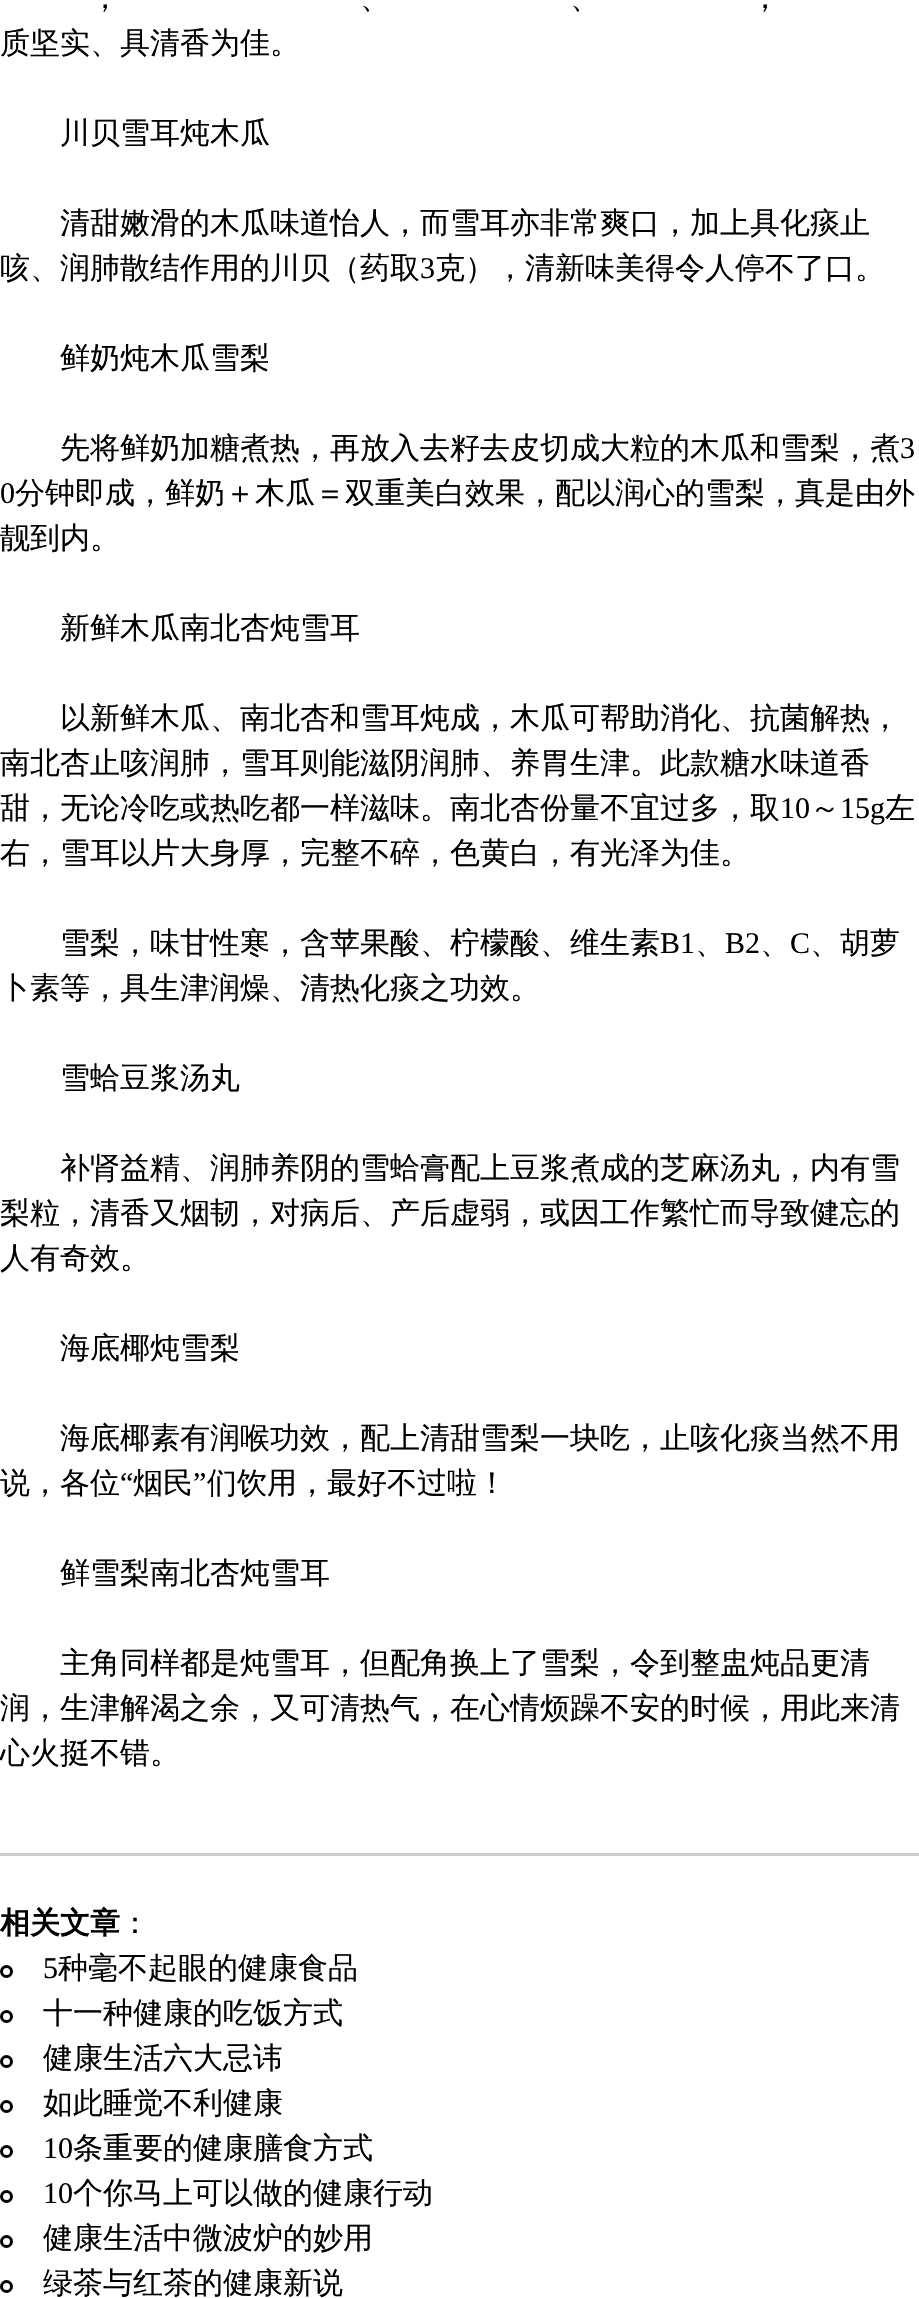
static SkFont makeFont(const char* family, int weight, float size, bool italic = false) {
  SkFontStyle style(weight, SkFontStyle::kNormal_Width,
    italic ? SkFontStyle::kItalic_Slant : SkFontStyle::kUpright_Slant);
  SkFont result(fontMgr->matchFamilyStyle(family, style), size);
  result.setSubpixel(true);
  return result;
}

static void text(SkCanvas* c, const char* s, float x, float y, const SkFont& font, SkColor color) {
  SkPaint ink(SkColor4f::FromColor(color));
  ink.setAntiAlias(true);
  c->drawString(s, x, y, font, ink);
}

static void box(SkCanvas* c, float l, float t, float r, float b, SkColor color) {
  SkPaint ink(SkColor4f::FromColor(color));
  ink.setAntiAlias(true);
  c->drawRect(SkRect::MakeLTRB(l, t, r, b), ink);
}

void draw(SkCanvas* c) {
  SkPaint paint;
  paint.setAntiAlias(true);
  c->clear(0xffffffff);
  SkFont face1 = makeFont("WenQuanYi Zen Hei", 500, 30);
  text(c, "，", 90, 8, face1, 0xff000000);
  text(c, "、", 360, 8, face1, 0xff000000);
  text(c, "、", 570, 8, face1, 0xff000000);
  text(c, "，", 750, 8, face1, 0xff000000);
  text(c, "质坚实、具清香为佳。", 0, 53, face1, 0xff000000);
  text(c, "川贝雪耳炖木瓜", 60, 143, face1, 0xff000000);
  text(c, "清甜嫩滑的木瓜味道怡人，而雪耳亦非常爽口，加上具化痰止", 60, 233, face1, 0xff000000);
  text(c, "咳、润肺散结作用的川贝（药取", 0, 278, face1, 0xff000000);
  SkFont face2 = makeFont("Liberation Serif", 400, 30);
  text(c, "3", 420, 278, face2, 0xff000000);
  text(c, "克），清新味美得令人停不了口。", 435, 278, face1, 0xff000000);
  text(c, "鲜奶炖木瓜雪梨", 60, 368, face1, 0xff000000);
  text(c, "先将鲜奶加糖煮热，再放入去籽去皮切成大粒的木瓜和雪梨，煮", 60, 458, face1, 0xff000000);
  text(c, "3", 900, 458, face2, 0xff000000);
  text(c, "0", 0, 503, face2, 0xff000000);
  text(c, "分钟即成，鲜奶＋木瓜＝双重美白效果，配以润心的雪梨，真是由外", 15, 503, face1, 0xff000000);
  text(c, "靓到内。", 0, 548, face1, 0xff000000);
  text(c, "新鲜木瓜南北杏炖雪耳", 60, 638, face1, 0xff000000);
  text(c, "以新鲜木瓜、南北杏和雪耳炖成，木瓜可帮助消化、抗菌解热，", 60, 728, face1, 0xff000000);
  text(c, "南北杏止咳润肺，雪耳则能滋阴润肺、养胃生津。此款糖水味道香", 0, 773, face1, 0xff000000);
  text(c, "甜，无论冷吃或热吃都一样滋味。南北杏份量不宜过多，取", 0, 818, face1, 0xff000000);
  text(c, "10", 780, 818, face2, 0xff000000);
  text(c, "～", 810, 818, face1, 0xff000000);
  text(c, "15g", 840, 818, face2, 0xff000000);
  text(c, "左", 885, 818, face1, 0xff000000);
  text(c, "右，雪耳以片大身厚，完整不碎，色黄白，有光泽为佳。", 0, 863, face1, 0xff000000);
  text(c, "雪梨，味甘性寒，含苹果酸、柠檬酸、维生素", 60, 953, face1, 0xff000000);
  text(c, "B1", 660, 953, face2, 0xff000000);
  text(c, "、", 695, 953, face1, 0xff000000);
  text(c, "B2", 725, 953, face2, 0xff000000);
  text(c, "、", 760, 953, face1, 0xff000000);
  text(c, "C", 790, 953, face2, 0xff000000);
  text(c, "、胡萝", 810, 953, face1, 0xff000000);
  text(c, "卜素等，具生津润燥、清热化痰之功效。", 0, 998, face1, 0xff000000);
  text(c, "雪蛤豆浆汤丸", 60, 1088, face1, 0xff000000);
  text(c, "补肾益精、润肺养阴的雪蛤膏配上豆浆煮成的芝麻汤丸，内有雪", 60, 1178, face1, 0xff000000);
  text(c, "梨粒，清香又烟韧，对病后、产后虚弱，或因工作繁忙而导致健忘的", 0, 1223, face1, 0xff000000);
  text(c, "人有奇效。", 0, 1268, face1, 0xff000000);
  text(c, "海底椰炖雪梨", 60, 1358, face1, 0xff000000);
  text(c, "海底椰素有润喉功效，配上清甜雪梨一块吃，止咳化痰当然不用", 60, 1448, face1, 0xff000000);
  text(c, "说，各位", 0, 1493, face1, 0xff000000);
  text(c, "“", 120, 1493, face2, 0xff000000);
  text(c, "烟民", 133, 1493, face1, 0xff000000);
  text(c, "”", 193, 1493, face2, 0xff000000);
  text(c, "们饮用，最好不过啦！", 207, 1493, face1, 0xff000000);
  text(c, "鲜雪梨南北杏炖雪耳", 60, 1583, face1, 0xff000000);
  text(c, "主角同样都是炖雪耳，但配角换上了雪梨，令到整盅炖品更清", 60, 1673, face1, 0xff000000);
  text(c, "润，生津解渴之余，又可清热气，在心情烦躁不安的时候，用此来清", 0, 1718, face1, 0xff000000);
  text(c, "心火挺不错。", 0, 1763, face1, 0xff000000);
  box(c, 0, 1853, 919, 1856, 0xffcccccc);
  SkFont face3 = makeFont("WenQuanYi Zen Hei", 700, 30);
  text(c, "相关文章", 0, 1933, face3, 0xff000000);
  text(c, "：", 120, 1933, face1, 0xff000000);
  paint.setStyle(SkPaint::kStroke_Style);
  paint.setStrokeWidth(3);
  paint.setColor(0xff000000);
  c->drawCircle(6.5f, 1971.5f, 5, paint);
  text(c, "5", 43, 1978, face2, 0xff000000);
  text(c, "种毫不起眼的健康食品", 58, 1978, face1, 0xff000000);
  c->drawCircle(6.5f, 2016.5f, 5, paint);
  text(c, "十一种健康的吃饭方式", 43, 2023, face1, 0xff000000);
  c->drawCircle(6.5f, 2061.5f, 5, paint);
  text(c, "健康生活六大忌讳", 43, 2068, face1, 0xff000000);
  c->drawCircle(6.5f, 2106.5f, 5, paint);
  text(c, "如此睡觉不利健康", 43, 2113, face1, 0xff000000);
  c->drawCircle(6.5f, 2151.5f, 5, paint);
  text(c, "10", 43, 2158, face2, 0xff000000);
  text(c, "条重要的健康膳食方式", 73, 2158, face1, 0xff000000);
  c->drawCircle(6.5f, 2196.5f, 5, paint);
  text(c, "10", 43, 2203, face2, 0xff000000);
  text(c, "个你马上可以做的健康行动", 73, 2203, face1, 0xff000000);
  c->drawCircle(6.5f, 2241.5f, 5, paint);
  text(c, "健康生活中微波炉的妙用", 43, 2248, face1, 0xff000000);
  c->drawCircle(6.5f, 2286.5f, 5, paint);
  text(c, "绿茶与红茶的健康新说", 43, 2293, face1, 0xff000000);
}
